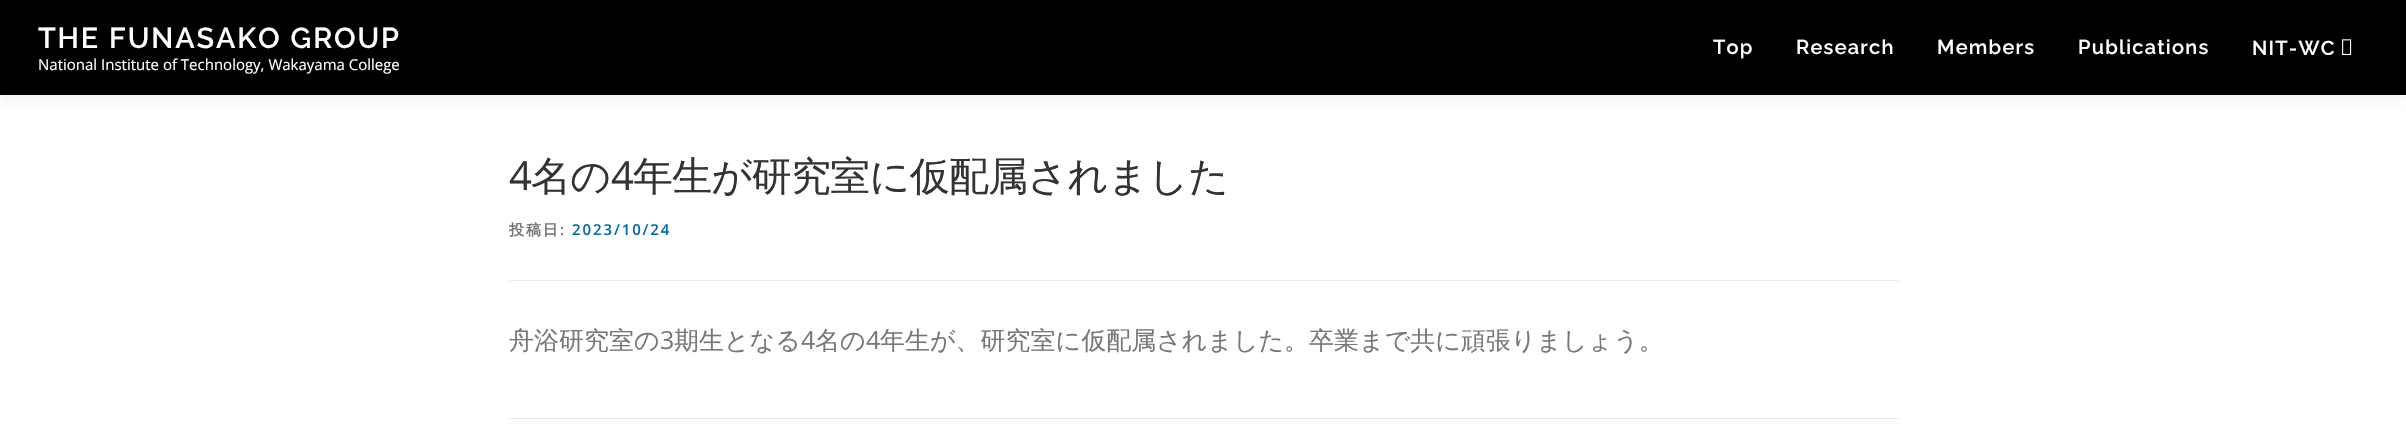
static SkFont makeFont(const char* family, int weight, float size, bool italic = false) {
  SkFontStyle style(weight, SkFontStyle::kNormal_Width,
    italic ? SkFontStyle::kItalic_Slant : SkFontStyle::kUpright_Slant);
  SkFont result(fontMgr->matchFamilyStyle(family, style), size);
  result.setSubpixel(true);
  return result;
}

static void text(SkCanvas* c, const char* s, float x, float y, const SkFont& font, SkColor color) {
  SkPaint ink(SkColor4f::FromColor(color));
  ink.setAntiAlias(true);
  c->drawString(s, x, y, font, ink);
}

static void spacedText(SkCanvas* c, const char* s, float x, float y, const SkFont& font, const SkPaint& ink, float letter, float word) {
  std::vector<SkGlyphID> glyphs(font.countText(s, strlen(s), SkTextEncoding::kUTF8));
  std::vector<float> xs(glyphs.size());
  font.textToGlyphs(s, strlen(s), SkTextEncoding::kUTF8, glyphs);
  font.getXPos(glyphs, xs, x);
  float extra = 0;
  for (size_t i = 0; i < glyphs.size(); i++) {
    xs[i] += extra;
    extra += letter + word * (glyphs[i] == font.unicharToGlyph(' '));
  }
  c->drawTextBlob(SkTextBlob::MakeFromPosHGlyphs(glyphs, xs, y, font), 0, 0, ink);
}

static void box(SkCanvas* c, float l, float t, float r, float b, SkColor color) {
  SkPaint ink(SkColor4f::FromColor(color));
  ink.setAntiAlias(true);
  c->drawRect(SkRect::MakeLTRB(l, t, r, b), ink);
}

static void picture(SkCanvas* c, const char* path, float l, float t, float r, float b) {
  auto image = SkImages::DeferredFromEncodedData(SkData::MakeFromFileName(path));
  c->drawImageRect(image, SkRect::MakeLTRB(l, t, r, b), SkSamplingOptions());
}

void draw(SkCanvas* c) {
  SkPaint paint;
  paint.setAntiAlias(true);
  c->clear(0xffffffff);
  paint.setColor(0x0f323232);
  paint.setMaskFilter(SkMaskFilter::MakeBlur(kNormal_SkBlurStyle, 6));
  c->drawRect(SkRect::MakeLTRB(0, 6, 2406, 101), paint);
  paint.setMaskFilter(nullptr);
  box(c, 0, 0, 2406, 95, 0xff000000);
  SkFont face1 = makeFont("Raleway", 600, 28.75f);
  paint.setColor(0xffffffff);
  spacedText(c, "THE FUNASAKO GROUP", 38, 48, face1, paint, 1.9f, 0);
  SkFont face2 = makeFont("Open Sans", 400, 15);
  text(c, "National Institute of Technology, Wakayama College", 38, 70, face2, 0xffffffff);
  SkFont face3 = makeFont("Raleway", 600, 20);
  spacedText(c, "Top", 1713, 54, face3, paint, 1.25f, 0);
  spacedText(c, "Research", 1796, 54, face3, paint, 1.25f, 0);
  spacedText(c, "Members", 1937, 54, face3, paint, 1.25f, 0);
  spacedText(c, "Publications", 2078, 54, face3, paint, 1.25f, 0);
  spacedText(c, "NIT-WC", 2252, 55, face3, paint, 1.25f, 0);
  picture(c, "img_01.png", 2342, 39, 2352, 55);
  SkFont face4 = makeFont("Open Sans", 400, 40);
  paint.setColor(0xff333333);
  spacedText(c, "4", 509, 190, face4, paint, -0.75f, 0);
  SkFont face5 = makeFont("WenQuanYi Zen Hei", 500, 40);
  spacedText(c, "名の", 531, 190, face5, paint, -0.75f, 0);
  spacedText(c, "4", 611, 190, face4, paint, -0.75f, 0);
  spacedText(c, "年生が研究室に仮配属されました", 633, 190, face5, paint, -0.75f, 0);
  box(c, 510, 280, 1898, 281, 0xffe9e9e9);
  SkFont face6 = makeFont("WenQuanYi Zen Hei", 700, 15);
  paint.setColor(0xff777777);
  spacedText(c, "投稿日", 509, 235, face6, paint, 1.9f, 0);
  SkFont face7 = makeFont("Open Sans", 600, 15);
  spacedText(c, ":", 560, 235, face7, paint, 1.9f, 0);
  paint.setColor(0xff016ead);
  spacedText(c, "2023/10/24", 572, 235, face7, paint, 1.9f, 0);
  SkFont face8 = makeFont("WenQuanYi Zen Hei", 500, 25);
  text(c, "舟浴研究室の", 509, 349, face8, 0xff777777);
  SkFont face9 = makeFont("Open Sans", 400, 25);
  text(c, "3", 660, 349, face9, 0xff777777);
  text(c, "期生となる", 674, 349, face8, 0xff777777);
  text(c, "4", 801, 349, face9, 0xff777777);
  text(c, "名の", 815, 349, face8, 0xff777777);
  text(c, "4", 866, 349, face9, 0xff777777);
  text(c, "年生が、研究室に仮配属されました。卒業まで共に頑張りましょう。", 880, 349, face8, 0xff777777);
  box(c, 510, 418, 1898, 419, 0xffe9e9e9);
}
